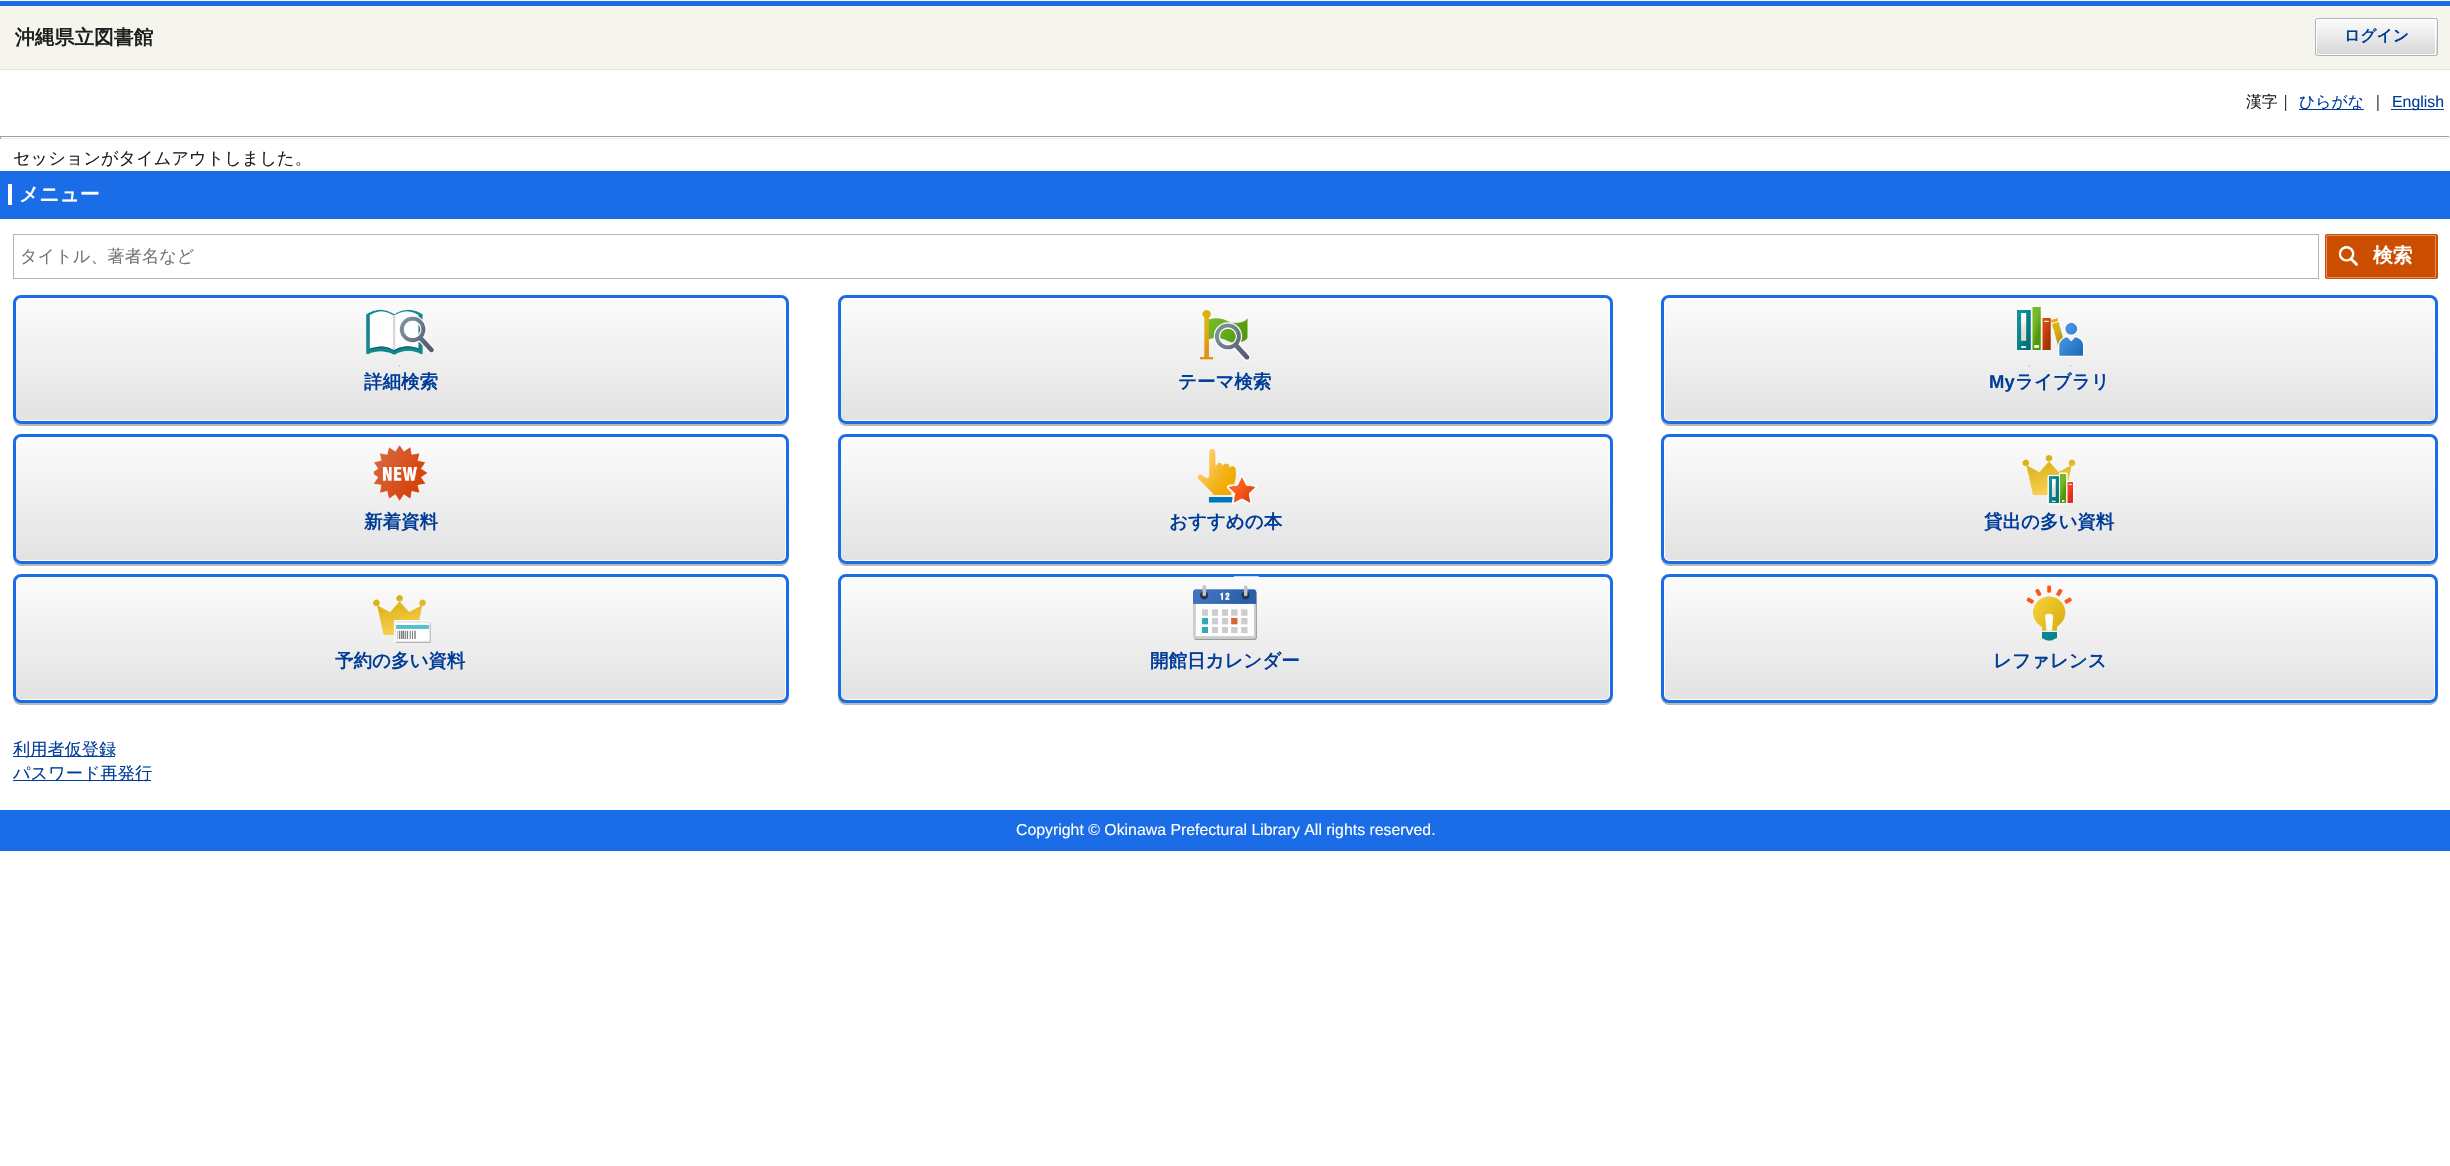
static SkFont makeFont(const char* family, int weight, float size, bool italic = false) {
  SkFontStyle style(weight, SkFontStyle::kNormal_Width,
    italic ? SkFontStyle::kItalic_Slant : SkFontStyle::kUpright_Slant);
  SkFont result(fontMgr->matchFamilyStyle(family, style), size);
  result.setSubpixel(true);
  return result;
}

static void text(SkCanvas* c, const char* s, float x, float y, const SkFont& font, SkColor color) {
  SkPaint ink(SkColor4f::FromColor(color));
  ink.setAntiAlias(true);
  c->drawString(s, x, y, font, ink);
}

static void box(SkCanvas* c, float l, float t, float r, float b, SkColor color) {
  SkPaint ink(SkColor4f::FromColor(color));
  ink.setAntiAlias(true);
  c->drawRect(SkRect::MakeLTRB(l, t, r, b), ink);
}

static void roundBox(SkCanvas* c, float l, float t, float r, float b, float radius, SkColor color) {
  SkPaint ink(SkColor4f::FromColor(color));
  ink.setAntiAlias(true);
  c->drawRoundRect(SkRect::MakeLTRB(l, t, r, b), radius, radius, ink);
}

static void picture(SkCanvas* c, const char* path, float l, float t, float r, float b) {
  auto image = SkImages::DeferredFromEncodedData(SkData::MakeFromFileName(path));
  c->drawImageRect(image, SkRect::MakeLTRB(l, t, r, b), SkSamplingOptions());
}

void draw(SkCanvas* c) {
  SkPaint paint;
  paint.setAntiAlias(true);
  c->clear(0xffffffff);
  box(c, 0, 1, 2450, 6, 0xff1a6de6);
  box(c, 0, 6, 2450, 69, 0xfff5f4ed);
  box(c, 0, 69, 2450, 70, 0xffe5e5e5);
  SkFont face1 = makeFont("WenQuanYi Zen Hei", 700, 19.75f);
  text(c, "沖縄県立図書館", 15, 44, face1, 0xff1f1f1f);
  c->save();
  c->clipPath(SkPathBuilder().moveTo(2317.5f, 18).lineTo(2435.5f, 18).cubicTo(2437, 18, 2438, 19, 2438, 20.5f).lineTo(2438, 53.5f).cubicTo(2438, 55, 2437, 56, 2435.5f, 56).lineTo(2317.5f, 56).cubicTo(2316, 56, 2315, 55, 2315, 53.5f).lineTo(2315, 20.5f).cubicTo(2315, 19, 2316, 18, 2317.5f, 18).close().detach(), true);
  {
    const SkColor colors[] = {0xfffcfcfc, 0xffd6d6d6};
    const float stops[] = {0, 1};
    const SkPoint ends[] = {{2376, 19}, {2376, 55}};
    paint.setShader(SkGradientShader::MakeLinear(ends, colors, stops, 2, SkTileMode::kClamp));
    paint.setAlpha(255);
  }
  c->drawRect(SkRect::MakeLTRB(2315, 19, 2438, 55), paint);
  c->restore();
  paint.setStyle(SkPaint::kStroke_Style);
  paint.setStrokeWidth(1);
  paint.setShader(nullptr);
  paint.setColor(0xffffffff);
  c->drawRoundRect(SkRect::MakeLTRB(2316.5f, 19.5f, 2435.5f, 54.5f), 0.5f, 0.5f, paint);
  paint.setColor(0xffb3b3b3);
  c->drawRoundRect(SkRect::MakeLTRB(2315.5f, 18.5f, 2437.5f, 55.5f), 2, 2, paint);
  SkFont face2 = makeFont("WenQuanYi Zen Hei", 700, 15.85f);
  text(c, "ログイン", 2344, 41, face2, 0xff003d99);
  SkFont face3 = makeFont("WenQuanYi Zen Hei", 500, 15.85f);
  text(c, "漢字｜", 2246, 107, face3, 0xff1f1f1f);
  box(c, 2299, 109, 2364, 110, 0xff003d99);
  text(c, "ひらがな", 2299, 107, face3, 0xff003d99);
  text(c, "｜", 2370, 107, face3, 0xff1f1f1f);
  box(c, 2391, 109, 2444, 110, 0xff003d99);
  SkFont face4 = makeFont("Liberation Sans", 400, 15.85f);
  text(c, "English", 2392, 107, face4, 0xff003d99);
  box(c, 0, 136, 2450, 137, 0xff9f9f9f);
  box(c, 2449, 136, 2450, 139, 0xffeeeeee);
  box(c, 0, 138, 2450, 139, 0xffeeeeee);
  box(c, 0, 136, 1, 139, 0xff9f9f9f);
  SkFont face5 = makeFont("WenQuanYi Zen Hei", 500, 17.2f);
  text(c, "セッションがタイムアウトしました。", 13, 164, face5, 0xff1f1f1f);
  box(c, 0, 171, 2450, 219, 0xff1a6de6);
  text(c, "メニュー", 19, 201, face1, 0xffffffff);
  box(c, 8, 184, 12, 205, 0xffffffff);
  c->drawRect(SkRect::MakeLTRB(13.5f, 234.5f, 2318.5f, 278.5f), paint);
  text(c, "タイトル、著者名など", 20, 262, face5, 0xff757575);
  roundBox(c, 2325, 234, 2438, 279, 2.5f, 0xffcc4e00);
  picture(c, "img_01.png", 2338, 245, 2358, 267);
  paint.setColor(0xffdf9365);
  c->drawRoundRect(SkRect::MakeLTRB(2326.5f, 235.5f, 2435.5f, 277.5f), 0.5f, 0.5f, paint);
  paint.setColor(0xffcc4e00);
  c->drawRoundRect(SkRect::MakeLTRB(2325.5f, 234.5f, 2437.5f, 278.5f), 2, 2, paint);
  text(c, "検索", 2373, 262, face1, 0xffffffff);
  paint.setStyle(SkPaint::kFill_Style);
  paint.setColor(0xffb8b8b8);
  c->drawPath(SkPathBuilder().moveTo(13, 419).cubicTo(14, 423, 17, 426, 21, 426).lineTo(781, 426).cubicTo(785, 426, 789, 422, 789, 418).lineTo(789, 304).lineTo(789, 416).cubicTo(789, 420, 785, 424, 781, 424).lineTo(20, 424).cubicTo(17, 424, 14, 422, 13, 419).close().detach(), paint);
  c->save();
  c->clipPath(SkPathBuilder().moveTo(21, 295).lineTo(781, 295).cubicTo(785.5f, 295, 789, 298.5f, 789, 303).lineTo(789, 416).cubicTo(789, 420.5f, 785.5f, 424, 781, 424).lineTo(21, 424).cubicTo(16.5f, 424, 13, 420.5f, 13, 416).lineTo(13, 303).cubicTo(13, 298.5f, 16.5f, 295, 21, 295).close().detach(), true);
  {
    const SkColor colors[] = {0xfffcfcfc, 0xffe2e2e2};
    const float stops[] = {0, 1};
    const SkPoint ends[] = {{401, 297}, {401, 421}};
    paint.setShader(SkGradientShader::MakeLinear(ends, colors, stops, 2, SkTileMode::kClamp));
    paint.setAlpha(255);
  }
  c->drawRect(SkRect::MakeLTRB(13, 298, 789, 421), paint);
  c->restore();
  paint.setStyle(SkPaint::kStroke_Style);
  paint.setShader(nullptr);
  paint.setColor(0xffffffff);
  c->drawRoundRect(SkRect::MakeLTRB(15.5f, 298.5f, 785.5f, 420.5f), 4.5f, 4.5f, paint);
  paint.setStrokeWidth(3);
  paint.setColor(0xff1a6de6);
  c->drawRoundRect(SkRect::MakeLTRB(14.5f, 296.5f, 787.5f, 422.5f), 6.5f, 6.5f, paint);
  picture(c, "img_02.png", 366, 309, 435, 367);
  SkFont face6 = makeFont("WenQuanYi Zen Hei", 700, 18.5f);
  text(c, "詳細検索", 364, 388, face6, 0xff003d99);
  paint.setStyle(SkPaint::kFill_Style);
  paint.setColor(0xffb8b8b8);
  c->drawPath(SkPathBuilder().moveTo(838, 419).cubicTo(839, 423, 842, 426, 846, 426).lineTo(1605, 426).cubicTo(1609, 426, 1613, 422, 1613, 418).lineTo(1613, 306).lineTo(1612, 303).lineTo(1612, 416).cubicTo(1612, 420, 1609, 424, 1605, 424).lineTo(845, 424).cubicTo(842, 424, 839, 422, 838, 419).close().detach(), paint);
  c->save();
  c->clipPath(SkPathBuilder().moveTo(846, 295).lineTo(1605, 295).cubicTo(1609.5f, 295, 1613, 298.5f, 1613, 303).lineTo(1613, 416).cubicTo(1613, 420.5f, 1609.5f, 424, 1605, 424).lineTo(846, 424).cubicTo(841.5f, 424, 838, 420.5f, 838, 416).lineTo(838, 303).cubicTo(838, 298.5f, 841.5f, 295, 846, 295).close().detach(), true);
  {
    const SkColor colors[] = {0xfffcfcfc, 0xffe2e2e2};
    const float stops[] = {0, 1};
    const SkPoint ends[] = {{1225, 297}, {1225, 421}};
    paint.setShader(SkGradientShader::MakeLinear(ends, colors, stops, 2, SkTileMode::kClamp));
    paint.setAlpha(255);
  }
  c->drawRect(SkRect::MakeLTRB(838, 298, 1613, 421), paint);
  c->restore();
  paint.setStyle(SkPaint::kStroke_Style);
  paint.setStrokeWidth(1);
  paint.setShader(nullptr);
  paint.setColor(0xffffffff);
  c->drawRoundRect(SkRect::MakeLTRB(840.5f, 298.5f, 1609.5f, 420.5f), 4.5f, 4.5f, paint);
  paint.setStrokeWidth(3);
  paint.setColor(0xff1a6de6);
  c->drawRoundRect(SkRect::MakeLTRB(839.5f, 296.5f, 1611.5f, 422.5f), 6.5f, 6.5f, paint);
  picture(c, "img_03.png", 1200, 310, 1251, 361);
  text(c, "テーマ検索", 1178, 388, face6, 0xff003d99);
  paint.setStyle(SkPaint::kFill_Style);
  paint.setColor(0xffb8b8b8);
  c->drawPath(SkPathBuilder().moveTo(1661, 304).lineTo(1661, 418).cubicTo(1661, 422, 1665, 426, 1669, 426).lineTo(2430, 426).cubicTo(2434, 426, 2438, 422, 2438, 418).lineTo(2438, 306).lineTo(2438, 303).lineTo(2438, 416).cubicTo(2438, 420, 2434, 424, 2430, 424).lineTo(1669, 424).cubicTo(1665, 424, 1661, 420, 1661, 416).close().detach(), paint);
  c->save();
  c->clipPath(SkPathBuilder().moveTo(1669, 295).lineTo(2430, 295).cubicTo(2434.5f, 295, 2438, 298.5f, 2438, 303).lineTo(2438, 416).cubicTo(2438, 420.5f, 2434.5f, 424, 2430, 424).lineTo(1669, 424).cubicTo(1664.5f, 424, 1661, 420.5f, 1661, 416).lineTo(1661, 303).cubicTo(1661, 298.5f, 1664.5f, 295, 1669, 295).close().detach(), true);
  {
    const SkColor colors[] = {0xfffcfcfc, 0xffe2e2e2};
    const float stops[] = {0, 1};
    const SkPoint ends[] = {{2049, 297}, {2049, 421}};
    paint.setShader(SkGradientShader::MakeLinear(ends, colors, stops, 2, SkTileMode::kClamp));
    paint.setAlpha(255);
  }
  c->drawRect(SkRect::MakeLTRB(1661, 298, 2438, 421), paint);
  c->restore();
  paint.setStyle(SkPaint::kStroke_Style);
  paint.setStrokeWidth(1);
  paint.setShader(nullptr);
  paint.setColor(0xffffffff);
  c->drawRoundRect(SkRect::MakeLTRB(1664.5f, 298.5f, 2434.5f, 420.5f), 4.5f, 4.5f, paint);
  paint.setStrokeWidth(3);
  paint.setColor(0xff1a6de6);
  c->drawRoundRect(SkRect::MakeLTRB(1662.5f, 296.5f, 2436.5f, 422.5f), 6.5f, 6.5f, paint);
  picture(c, "img_04.png", 2017, 307, 2085, 367);
  SkFont face7 = makeFont("Liberation Sans", 700, 18.5f);
  text(c, "My", 1989, 388, face7, 0xff003d99);
  text(c, "ライブラリ", 2015, 388, face6, 0xff003d99);
  paint.setStyle(SkPaint::kFill_Style);
  paint.setColor(0xffb8b8b8);
  c->drawPath(SkPathBuilder().moveTo(13, 559).cubicTo(14, 563, 17, 566, 21, 566).lineTo(781, 566).cubicTo(785, 566, 789, 562, 789, 558).lineTo(789, 442).lineTo(789, 556).cubicTo(789, 560, 785, 564, 781, 564).lineTo(20, 564).cubicTo(17, 564, 14, 562, 13, 559).close().detach(), paint);
  c->save();
  c->clipPath(SkPathBuilder().moveTo(21, 434).lineTo(781, 434).cubicTo(785.5f, 434, 789, 437.5f, 789, 442).lineTo(789, 556).cubicTo(789, 560.5f, 785.5f, 564, 781, 564).lineTo(21, 564).cubicTo(16.5f, 564, 13, 560.5f, 13, 556).lineTo(13, 442).cubicTo(13, 437.5f, 16.5f, 434, 21, 434).close().detach(), true);
  {
    const SkColor colors[] = {0xfffcfcfc, 0xffe2e2e2};
    const float stops[] = {0, 1};
    const SkPoint ends[] = {{401, 436}, {401, 561}};
    paint.setShader(SkGradientShader::MakeLinear(ends, colors, stops, 2, SkTileMode::kClamp));
    paint.setAlpha(255);
  }
  c->drawRect(SkRect::MakeLTRB(13, 436, 789, 561), paint);
  c->restore();
  paint.setStyle(SkPaint::kStroke_Style);
  paint.setStrokeWidth(1);
  paint.setShader(nullptr);
  paint.setColor(0xffffffff);
  c->drawRoundRect(SkRect::MakeLTRB(15.5f, 436.5f, 785.5f, 560.5f), 4.5f, 4.5f, paint);
  paint.setStrokeWidth(3);
  paint.setColor(0xff1a6de6);
  c->drawRoundRect(SkRect::MakeLTRB(14.5f, 435.5f, 787.5f, 562.5f), 6.5f, 6.5f, paint);
  picture(c, "img_05.png", 373, 445, 428, 501);
  text(c, "新着資料", 364, 528, face6, 0xff003d99);
  paint.setStyle(SkPaint::kFill_Style);
  paint.setColor(0xffb8b8b8);
  c->drawPath(SkPathBuilder().moveTo(838, 559).cubicTo(839, 563, 842, 566, 846, 566).lineTo(1605, 566).cubicTo(1609, 566, 1613, 562, 1613, 558).lineTo(1613, 444).lineTo(1612, 441).lineTo(1612, 537).cubicTo(1612, 541, 1617, 564, 1605, 564).lineTo(844, 564).cubicTo(841, 563, 839, 562, 838, 559).close().detach(), paint);
  c->save();
  c->clipPath(SkPathBuilder().moveTo(846, 434).lineTo(1605, 434).cubicTo(1609.5f, 434, 1613, 437.5f, 1613, 442).lineTo(1613, 556).cubicTo(1613, 560.5f, 1609.5f, 564, 1605, 564).lineTo(846, 564).cubicTo(841.5f, 564, 838, 560.5f, 838, 556).lineTo(838, 442).cubicTo(838, 437.5f, 841.5f, 434, 846, 434).close().detach(), true);
  {
    const SkColor colors[] = {0xfffcfcfc, 0xffe2e2e2};
    const float stops[] = {0, 1};
    const SkPoint ends[] = {{1225, 436}, {1225, 561}};
    paint.setShader(SkGradientShader::MakeLinear(ends, colors, stops, 2, SkTileMode::kClamp));
    paint.setAlpha(255);
  }
  c->drawRect(SkRect::MakeLTRB(838, 436, 1613, 561), paint);
  c->restore();
  paint.setStyle(SkPaint::kStroke_Style);
  paint.setStrokeWidth(1);
  paint.setShader(nullptr);
  paint.setColor(0xffffffff);
  c->drawRoundRect(SkRect::MakeLTRB(840.5f, 436.5f, 1609.5f, 560.5f), 4.5f, 4.5f, paint);
  paint.setStrokeWidth(3);
  paint.setColor(0xff1a6de6);
  c->drawRoundRect(SkRect::MakeLTRB(839.5f, 435.5f, 1611.5f, 562.5f), 6.5f, 6.5f, paint);
  picture(c, "img_06.png", 1197, 448, 1257, 505);
  text(c, "おすすめの本", 1169, 528, face6, 0xff003d99);
  paint.setStyle(SkPaint::kFill_Style);
  paint.setColor(0xffb8b8b8);
  c->drawPath(SkPathBuilder().moveTo(1661, 442).lineTo(1661, 558).cubicTo(1661, 562, 1665, 566, 1669, 566).lineTo(2430, 566).cubicTo(2434, 566, 2438, 562, 2438, 558).lineTo(2438, 444).lineTo(2438, 441).lineTo(2438, 556).cubicTo(2438, 560, 2434, 564, 2430, 564).lineTo(1669, 564).cubicTo(1665, 564, 1661, 560, 1661, 556).close().detach(), paint);
  c->save();
  c->clipPath(SkPathBuilder().moveTo(1669, 434).lineTo(2430, 434).cubicTo(2434.5f, 434, 2438, 437.5f, 2438, 442).lineTo(2438, 556).cubicTo(2438, 560.5f, 2434.5f, 564, 2430, 564).lineTo(1669, 564).cubicTo(1664.5f, 564, 1661, 560.5f, 1661, 556).lineTo(1661, 442).cubicTo(1661, 437.5f, 1664.5f, 434, 1669, 434).close().detach(), true);
  {
    const SkColor colors[] = {0xfffcfcfc, 0xffe2e2e2};
    const float stops[] = {0, 1};
    const SkPoint ends[] = {{2049, 436}, {2049, 561}};
    paint.setShader(SkGradientShader::MakeLinear(ends, colors, stops, 2, SkTileMode::kClamp));
    paint.setAlpha(255);
  }
  c->drawRect(SkRect::MakeLTRB(1661, 436, 2438, 561), paint);
  c->restore();
  paint.setStyle(SkPaint::kStroke_Style);
  paint.setStrokeWidth(1);
  paint.setShader(nullptr);
  paint.setColor(0xffffffff);
  c->drawRoundRect(SkRect::MakeLTRB(1664.5f, 436.5f, 2434.5f, 560.5f), 4.5f, 4.5f, paint);
  paint.setStrokeWidth(3);
  paint.setColor(0xff1a6de6);
  c->drawRoundRect(SkRect::MakeLTRB(1662.5f, 435.5f, 2436.5f, 562.5f), 6.5f, 6.5f, paint);
  picture(c, "img_07.png", 2022, 455, 2076, 505);
  text(c, "貸出の多い資料", 1984, 528, face6, 0xff003d99);
  paint.setStyle(SkPaint::kFill_Style);
  paint.setColor(0xffb8b8b8);
  c->drawPath(SkPathBuilder().moveTo(13, 698).cubicTo(13, 702, 17, 705, 21, 705).lineTo(781, 705).cubicTo(785, 705, 789, 701, 789, 697).lineTo(789, 582).lineTo(789, 695).cubicTo(789, 699, 785, 702, 781, 702).lineTo(20, 702).cubicTo(17, 702, 14, 701, 13, 698).close().detach(), paint);
  c->save();
  c->clipPath(SkPathBuilder().moveTo(21, 574).lineTo(781, 574).cubicTo(785.5f, 574, 789, 577.5f, 789, 582).lineTo(789, 695).cubicTo(789, 699.5f, 785.5f, 703, 781, 703).lineTo(21, 703).cubicTo(16.5f, 703, 13, 699.5f, 13, 695).lineTo(13, 582).cubicTo(13, 577.5f, 16.5f, 574, 21, 574).close().detach(), true);
  {
    const SkColor colors[] = {0xfffcfcfc, 0xffe2e2e2};
    const float stops[] = {0, 1};
    const SkPoint ends[] = {{401, 576}, {401, 700}};
    paint.setShader(SkGradientShader::MakeLinear(ends, colors, stops, 2, SkTileMode::kClamp));
    paint.setAlpha(255);
  }
  c->drawRect(SkRect::MakeLTRB(13, 576, 789, 700), paint);
  c->restore();
  paint.setStyle(SkPaint::kStroke_Style);
  paint.setStrokeWidth(1);
  paint.setShader(nullptr);
  paint.setColor(0xffffffff);
  c->drawRoundRect(SkRect::MakeLTRB(15.5f, 576.5f, 785.5f, 699.5f), 4.5f, 4.5f, paint);
  paint.setStrokeWidth(3);
  paint.setColor(0xff1a6de6);
  c->drawRoundRect(SkRect::MakeLTRB(14.5f, 575.5f, 787.5f, 701.5f), 6.5f, 6.5f, paint);
  picture(c, "img_08.png", 373, 595, 431, 643);
  text(c, "予約の多い資料", 335, 667, face6, 0xff003d99);
  paint.setStyle(SkPaint::kFill_Style);
  paint.setColor(0xffb8b8b8);
  c->drawPath(SkPathBuilder().moveTo(838, 698).cubicTo(838, 702, 842, 705, 846, 705).lineTo(1605, 705).cubicTo(1609, 705, 1613, 701, 1613, 697).lineTo(1613, 584).lineTo(1612, 581).lineTo(1612, 676).cubicTo(1612, 680, 1617, 702, 1605, 702).lineTo(845, 702).cubicTo(842, 702, 839, 701, 838, 698).close().detach(), paint);
  c->save();
  c->clipPath(SkPathBuilder().moveTo(846, 574).lineTo(1605, 574).cubicTo(1609.5f, 574, 1613, 577.5f, 1613, 582).lineTo(1613, 695).cubicTo(1613, 699.5f, 1609.5f, 703, 1605, 703).lineTo(846, 703).cubicTo(841.5f, 703, 838, 699.5f, 838, 695).lineTo(838, 582).cubicTo(838, 577.5f, 841.5f, 574, 846, 574).close().detach(), true);
  {
    const SkColor colors[] = {0xfffcfcfc, 0xffe2e2e2};
    const float stops[] = {0, 1};
    const SkPoint ends[] = {{1225, 576}, {1225, 700}};
    paint.setShader(SkGradientShader::MakeLinear(ends, colors, stops, 2, SkTileMode::kClamp));
    paint.setAlpha(255);
  }
  c->drawRect(SkRect::MakeLTRB(838, 576, 1613, 700), paint);
  c->restore();
  paint.setStyle(SkPaint::kStroke_Style);
  paint.setStrokeWidth(1);
  paint.setShader(nullptr);
  paint.setColor(0xffffffff);
  c->drawRoundRect(SkRect::MakeLTRB(840.5f, 576.5f, 1609.5f, 699.5f), 4.5f, 4.5f, paint);
  paint.setStrokeWidth(3);
  paint.setColor(0xff1a6de6);
  c->drawRoundRect(SkRect::MakeLTRB(839.5f, 575.5f, 1611.5f, 701.5f), 6.5f, 6.5f, paint);
  picture(c, "img_09.png", 1193, 576, 1260, 640);
  text(c, "開館日カレンダー", 1150, 667, face6, 0xff003d99);
  paint.setStyle(SkPaint::kFill_Style);
  paint.setColor(0xffb8b8b8);
  c->drawPath(SkPathBuilder().moveTo(1661, 582).lineTo(1661, 697).cubicTo(1661, 701, 1665, 705, 1669, 705).lineTo(2430, 705).cubicTo(2434, 705, 2438, 701, 2438, 697).lineTo(2438, 584).lineTo(2438, 581).lineTo(2438, 695).cubicTo(2438, 699, 2434, 702, 2430, 702).lineTo(1669, 702).cubicTo(1665, 702, 1661, 699, 1661, 695).close().detach(), paint);
  c->save();
  c->clipPath(SkPathBuilder().moveTo(1669, 574).lineTo(2430, 574).cubicTo(2434.5f, 574, 2438, 577.5f, 2438, 582).lineTo(2438, 695).cubicTo(2438, 699.5f, 2434.5f, 703, 2430, 703).lineTo(1669, 703).cubicTo(1664.5f, 703, 1661, 699.5f, 1661, 695).lineTo(1661, 582).cubicTo(1661, 577.5f, 1664.5f, 574, 1669, 574).close().detach(), true);
  {
    const SkColor colors[] = {0xfffcfcfc, 0xffe2e2e2};
    const float stops[] = {0, 1};
    const SkPoint ends[] = {{2049, 576}, {2049, 700}};
    paint.setShader(SkGradientShader::MakeLinear(ends, colors, stops, 2, SkTileMode::kClamp));
    paint.setAlpha(255);
  }
  c->drawRect(SkRect::MakeLTRB(1661, 576, 2438, 700), paint);
  c->restore();
  paint.setStyle(SkPaint::kStroke_Style);
  paint.setStrokeWidth(1);
  paint.setShader(nullptr);
  paint.setColor(0xffffffff);
  c->drawRoundRect(SkRect::MakeLTRB(1664.5f, 576.5f, 2434.5f, 699.5f), 4.5f, 4.5f, paint);
  paint.setStrokeWidth(3);
  paint.setColor(0xff1a6de6);
  c->drawRoundRect(SkRect::MakeLTRB(1662.5f, 575.5f, 2436.5f, 701.5f), 6.5f, 6.5f, paint);
  picture(c, "img_10.png", 2026, 585, 2072, 641);
  text(c, "レファレンス", 1993, 667, face6, 0xff003d99);
  box(c, 13, 756, 115, 757, 0xff003d99);
  text(c, "利用者仮登録", 13, 755, face5, 0xff003d99);
  box(c, 13, 780, 151, 781, 0xff003d99);
  text(c, "パスワード再発行", 13, 779, face5, 0xff003d99);
  box(c, 0, 810, 2450, 851, 0xff1a6de6);
  text(c, "Copyright © Okinawa Prefectural Library All rights reserved.", 1016, 835, face4, 0xffffffff);
}
